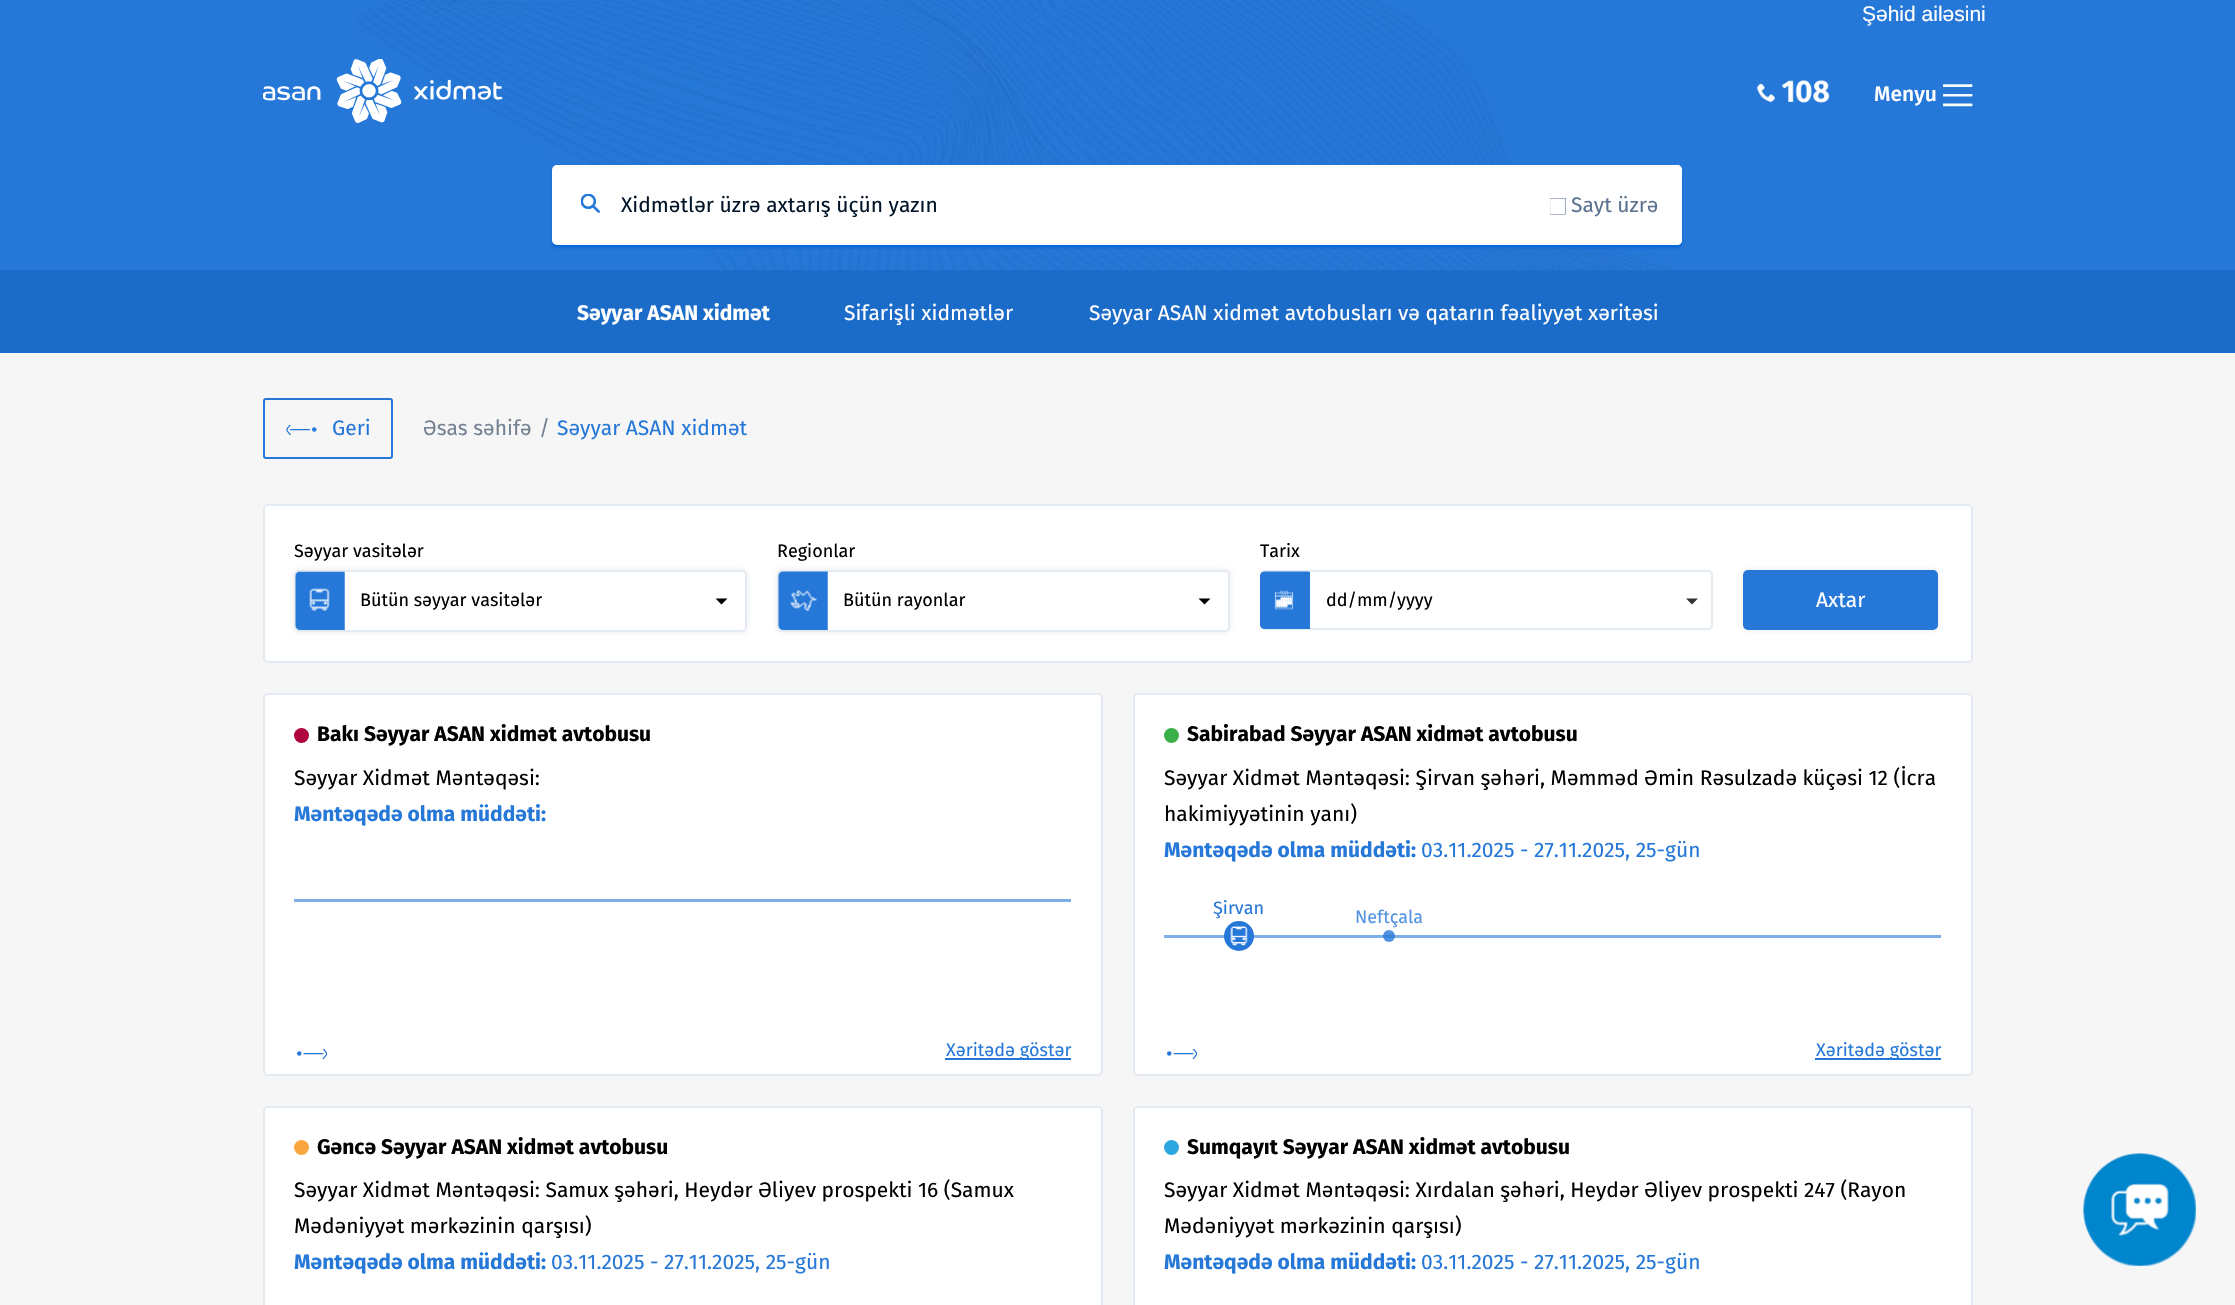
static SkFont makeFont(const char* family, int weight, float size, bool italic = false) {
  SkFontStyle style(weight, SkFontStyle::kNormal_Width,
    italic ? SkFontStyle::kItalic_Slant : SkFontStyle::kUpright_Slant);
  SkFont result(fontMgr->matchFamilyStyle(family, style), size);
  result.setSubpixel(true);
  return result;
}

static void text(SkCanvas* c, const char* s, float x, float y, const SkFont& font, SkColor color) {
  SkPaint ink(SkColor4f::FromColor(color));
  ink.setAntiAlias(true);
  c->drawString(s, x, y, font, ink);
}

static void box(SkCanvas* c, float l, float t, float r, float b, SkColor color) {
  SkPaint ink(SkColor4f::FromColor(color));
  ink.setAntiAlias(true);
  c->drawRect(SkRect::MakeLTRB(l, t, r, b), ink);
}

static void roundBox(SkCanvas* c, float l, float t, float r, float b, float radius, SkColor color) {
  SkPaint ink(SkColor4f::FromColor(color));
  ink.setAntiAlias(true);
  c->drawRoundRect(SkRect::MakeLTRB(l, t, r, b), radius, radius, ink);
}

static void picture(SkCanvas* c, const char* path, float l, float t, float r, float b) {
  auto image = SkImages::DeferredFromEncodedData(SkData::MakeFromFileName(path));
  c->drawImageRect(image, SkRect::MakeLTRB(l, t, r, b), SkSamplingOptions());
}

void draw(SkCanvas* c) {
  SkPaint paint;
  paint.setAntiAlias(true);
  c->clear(0xfff6f6f6);
  box(c, 0, 0, 2235, 270, 0xff2678d8);
  picture(c, "img_01.png", 357, 0, 1671, 270);
  SkFont face1 = makeFont("Liberation Sans", 400, 21);
  text(c, "Şəhid ailəsini", 1862, 21, face1, 0xffffffff);
  picture(c, "img_02.png", 263, 59, 503, 123);
  picture(c, "img_03.png", 1756, 80, 1830, 103);
  SkFont face2 = makeFont("Fira Sans", 500, 21);
  text(c, "Menyu", 1874, 101, face2, 0xffffffff);
  picture(c, "img_04.png", 1943, 84, 1973, 107);
  paint.setColor(0xff0666d6);
  paint.setMaskFilter(SkMaskFilter::MakeBlur(kNormal_SkBlurStyle, 1.5f));
  c->drawRoundRect(SkRect::MakeLTRB(552, 168, 1682, 248), 5, 5, paint);
  paint.setMaskFilter(nullptr);
  paint.setColor(0xffffffff);
  c->drawRoundRect(SkRect::MakeLTRB(553, 166, 1681, 244), 4, 4, paint);
  paint.setStyle(SkPaint::kStroke_Style);
  paint.setStrokeWidth(2);
  c->drawRoundRect(SkRect::MakeLTRB(553, 166, 1681, 244), 4, 4, paint);
  picture(c, "img_05.png", 581, 194, 600, 213);
  SkFont face3 = makeFont("Fira Sans", 400, 21);
  text(c, "Xidmətlər üzrə axtarış üçün yazın", 621, 212, face3, 0xff031529);
  paint.setStyle(SkPaint::kFill_Style);
  c->drawPath(SkPathBuilder().moveTo(1535, 165).lineTo(1677, 165).cubicTo(1680, 165, 1682, 167, 1682, 170).lineTo(1682, 240).cubicTo(1682, 243, 1680, 245, 1677, 245).lineTo(1535, 245).close().detach(), paint);
  picture(c, "img_06.png", 1550, 198, 1566, 215);
  text(c, "Sayt üzrə", 1571, 212, face3, 0xff5b7390);
  box(c, 0, 270, 2235, 353, 0xff1b6bc9);
  SkFont face4 = makeFont("Fira Sans", 700, 21);
  text(c, "Səyyar ASAN xidmət", 577, 320, face4, 0xffffffff);
  text(c, "Sifarişli xidmətlər", 844, 320, face3, 0xffffffff);
  text(c, "Səyyar ASAN xidmət avtobusları və qatarın fəaliyyət xəritəsi", 1089, 320, face3, 0xffffffff);
  paint.setStyle(SkPaint::kStroke_Style);
  paint.setColor(0xff2678d8);
  c->drawRoundRect(SkRect::MakeLTRB(264, 399, 392, 458), 2, 2, paint);
  picture(c, "img_07.png", 286, 425, 317, 435);
  text(c, "Geri", 332, 435, face3, 0xff2678d8);
  text(c, "Əsas səhifə", 423, 435, face3, 0xff748292);
  text(c, "/", 539, 435, face3, 0xff748292);
  text(c, "Səyyar ASAN xidmət", 557, 435, face3, 0xff2678d8);
  paint.setStyle(SkPaint::kFill_Style);
  paint.setColor(0xffffffff);
  c->drawRoundRect(SkRect::MakeLTRB(264, 505, 1972, 662), 4, 4, paint);
  paint.setStyle(SkPaint::kStroke_Style);
  paint.setColor(0xffe4eaf1);
  c->drawRoundRect(SkRect::MakeLTRB(264, 505, 1972, 662), 4, 4, paint);
  SkFont face5 = makeFont("Fira Sans", 400, 18);
  text(c, "Səyyar vasitələr", 294, 557, face5, 0xff000000);
  paint.setStyle(SkPaint::kFill_Style);
  paint.setColor(0x80d4d4d4);
  paint.setMaskFilter(SkMaskFilter::MakeBlur(kNormal_SkBlurStyle, 3));
  c->drawRoundRect(SkRect::MakeLTRB(294, 570, 747, 632), 5, 5, paint);
  paint.setMaskFilter(nullptr);
  paint.setColor(0xffffffff);
  c->drawRoundRect(SkRect::MakeLTRB(295, 571, 746, 631), 4, 4, paint);
  paint.setStyle(SkPaint::kStroke_Style);
  paint.setColor(0xffe4eaf1);
  c->drawRoundRect(SkRect::MakeLTRB(295, 571, 746, 631), 4, 4, paint);
  picture(c, "img_08.png", 295, 571, 345, 630);
  text(c, "Bütün səyyar vasitələr", 360, 606, face5, 0xff000000);
  paint.setStyle(SkPaint::kFill_Style);
  paint.setColor(0xff000000);
  c->drawPath(SkPathBuilder().moveTo(715.5f, 598.5f).lineTo(727.5f, 598.5f).lineTo(721.5f, 604.5f).close().detach(), paint);
  text(c, "Regionlar", 777, 557, face5, 0xff000000);
  paint.setColor(0x80d4d4d4);
  paint.setMaskFilter(SkMaskFilter::MakeBlur(kNormal_SkBlurStyle, 3));
  c->drawRoundRect(SkRect::MakeLTRB(777, 570, 1230, 632), 5, 5, paint);
  paint.setMaskFilter(nullptr);
  paint.setColor(0xffffffff);
  c->drawRoundRect(SkRect::MakeLTRB(778, 571, 1229, 631), 4, 4, paint);
  paint.setStyle(SkPaint::kStroke_Style);
  paint.setColor(0xffe4eaf1);
  c->drawRoundRect(SkRect::MakeLTRB(778, 571, 1229, 631), 4, 4, paint);
  picture(c, "img_09.png", 778, 571, 828, 630);
  text(c, "Bütün rayonlar", 843, 606, face5, 0xff000000);
  paint.setStyle(SkPaint::kFill_Style);
  paint.setColor(0xff000000);
  c->drawPath(SkPathBuilder().moveTo(1198.5f, 598.5f).lineTo(1210.5f, 598.5f).lineTo(1204.5f, 604.5f).close().detach(), paint);
  text(c, "Tarix", 1260, 557, face5, 0xff000000);
  paint.setStyle(SkPaint::kStroke_Style);
  paint.setColor(0xffe4eaf1);
  c->drawRoundRect(SkRect::MakeLTRB(1261, 571, 1712, 629), 4, 4, paint);
  paint.setStyle(SkPaint::kFill_Style);
  paint.setColor(0xff2678d8);
  c->drawPath(SkPathBuilder().moveTo(1265, 572).lineTo(1310, 572).lineTo(1310, 629).lineTo(1265, 629).cubicTo(1262, 629, 1260, 627, 1260, 624).lineTo(1260, 577).cubicTo(1260, 574, 1262, 572, 1265, 572).close().detach(), paint);
  picture(c, "img_10.png", 1260, 571, 1310, 629);
  text(c, "dd/mm/yyyy", 1326, 606, face5, 0xff000000);
  paint.setColor(0xff333333);
  c->drawPath(SkPathBuilder().moveTo(1686, 598.5f).lineTo(1698, 598.5f).lineTo(1692, 604.5f).close().detach(), paint);
  paint.setColor(0x80d4d4d4);
  paint.setMaskFilter(SkMaskFilter::MakeBlur(kNormal_SkBlurStyle, 3));
  c->drawRoundRect(SkRect::MakeLTRB(1743, 570, 1938, 630), 5, 5, paint);
  paint.setMaskFilter(nullptr);
  roundBox(c, 1743, 570, 1938, 630, 5, 0xff2678d8);
  text(c, "Axtar", 1816, 607, face3, 0xffffffff);
  paint.setColor(0xffffffff);
  c->drawRoundRect(SkRect::MakeLTRB(264, 694, 1102, 1075), 4, 4, paint);
  paint.setStyle(SkPaint::kStroke_Style);
  paint.setColor(0xffe4eaf1);
  c->drawRoundRect(SkRect::MakeLTRB(264, 694, 1102, 1075), 4, 4, paint);
  paint.setStyle(SkPaint::kFill_Style);
  paint.setColor(0xffaf053e);
  c->drawCircle(301.5f, 735.5f, 7.5f, paint);
  text(c, "Bakı Səyyar ASAN xidmət avtobusu", 317, 741, face4, 0xff000000);
  text(c, "Səyyar Xidmət Məntəqəsi:", 294, 785, face3, 0xff000000);
  text(c, "Məntəqədə olma müddəti:", 294, 821, face4, 0xff2678d8);
  box(c, 294, 899, 1071, 902, 0xff7daee8);
  picture(c, "img_11.png", 296, 1049, 327, 1059);
  box(c, 945, 1058, 1071, 1060, 0xff2678d8);
  text(c, "Xəritədə göstər", 946, 1056, face5, 0xff2678d8);
  paint.setColor(0xffffffff);
  c->drawRoundRect(SkRect::MakeLTRB(1134, 694, 1972, 1075), 4, 4, paint);
  paint.setStyle(SkPaint::kStroke_Style);
  paint.setColor(0xffe4eaf1);
  c->drawRoundRect(SkRect::MakeLTRB(1134, 694, 1972, 1075), 4, 4, paint);
  paint.setStyle(SkPaint::kFill_Style);
  paint.setColor(0xff3bb04a);
  c->drawCircle(1171.5f, 735.5f, 7.5f, paint);
  text(c, "Sabirabad Səyyar ASAN xidmət avtobusu", 1187, 741, face4, 0xff000000);
  text(c, "Səyyar Xidmət Məntəqəsi: Şirvan şəhəri, Məmməd Əmin Rəsulzadə küçəsi 12 (İcra", 1164, 785, face3, 0xff000000);
  text(c, "hakimiyyətinin yanı)", 1164, 821, face3, 0xff000000);
  text(c, "Məntəqədə olma müddəti:", 1164, 857, face4, 0xff2678d8);
  text(c, "03.11.2025 - 27.11.2025, 25-gün", 1421, 857, face3, 0xff2678d8);
  text(c, "Şirvan", 1213, 914, face5, 0xff2678d8);
  box(c, 1164, 935, 1941, 938, 0xff7daee8);
  paint.setColor(0xff2678d8);
  c->drawCircle(1239, 936, 15, paint);
  picture(c, "img_12.png", 1230, 926, 1248, 946);
  text(c, "Neftçala", 1355, 923, face5, 0xff5193e0);
  paint.setColor(0xcc2678d8);
  c->drawCircle(1389, 936, 6, paint);
  picture(c, "img_11.png", 1166, 1049, 1197, 1059);
  box(c, 1815, 1058, 1941, 1060, 0xff2678d8);
  text(c, "Xəritədə göstər", 1816, 1056, face5, 0xff2678d8);
  paint.setColor(0xffffffff);
  c->drawRoundRect(SkRect::MakeLTRB(264, 1107, 1102, 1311), 4, 4, paint);
  paint.setStyle(SkPaint::kStroke_Style);
  paint.setColor(0xffe4eaf1);
  c->drawRoundRect(SkRect::MakeLTRB(264, 1107, 1102, 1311), 4, 4, paint);
  paint.setStyle(SkPaint::kFill_Style);
  paint.setColor(0xfff9a640);
  c->drawCircle(301.5f, 1147.5f, 7.5f, paint);
  text(c, "Gəncə Səyyar ASAN xidmət avtobusu", 317, 1154, face4, 0xff000000);
  text(c, "Səyyar Xidmət Məntəqəsi: Samux şəhəri, Heydər Əliyev prospekti 16 (Samux", 294, 1197, face3, 0xff000000);
  text(c, "Mədəniyyət mərkəzinin qarşısı)", 294, 1233, face3, 0xff000000);
  text(c, "Məntəqədə olma müddəti:", 294, 1269, face4, 0xff2678d8);
  text(c, "03.11.2025 - 27.11.2025, 25-gün", 551, 1269, face3, 0xff2678d8);
  paint.setColor(0xffffffff);
  c->drawRoundRect(SkRect::MakeLTRB(1134, 1107, 1972, 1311), 4, 4, paint);
  paint.setStyle(SkPaint::kStroke_Style);
  paint.setColor(0xffe4eaf1);
  c->drawRoundRect(SkRect::MakeLTRB(1134, 1107, 1972, 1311), 4, 4, paint);
  paint.setStyle(SkPaint::kFill_Style);
  paint.setColor(0xff2ba6de);
  c->drawCircle(1171.5f, 1147.5f, 7.5f, paint);
  text(c, "Sumqayıt Səyyar ASAN xidmət avtobusu", 1187, 1154, face4, 0xff000000);
  text(c, "Səyyar Xidmət Məntəqəsi: Xırdalan şəhəri, Heydər Əliyev prospekti 247 (Rayon", 1164, 1197, face3, 0xff000000);
  text(c, "Mədəniyyət mərkəzinin qarşısı)", 1164, 1233, face3, 0xff000000);
  text(c, "Məntəqədə olma müddəti:", 1164, 1269, face4, 0xff2678d8);
  text(c, "03.11.2025 - 27.11.2025, 25-gün", 1421, 1269, face3, 0xff2678d8);
  picture(c, "img_13.png", 2083, 1153, 2196, 1266);
}
